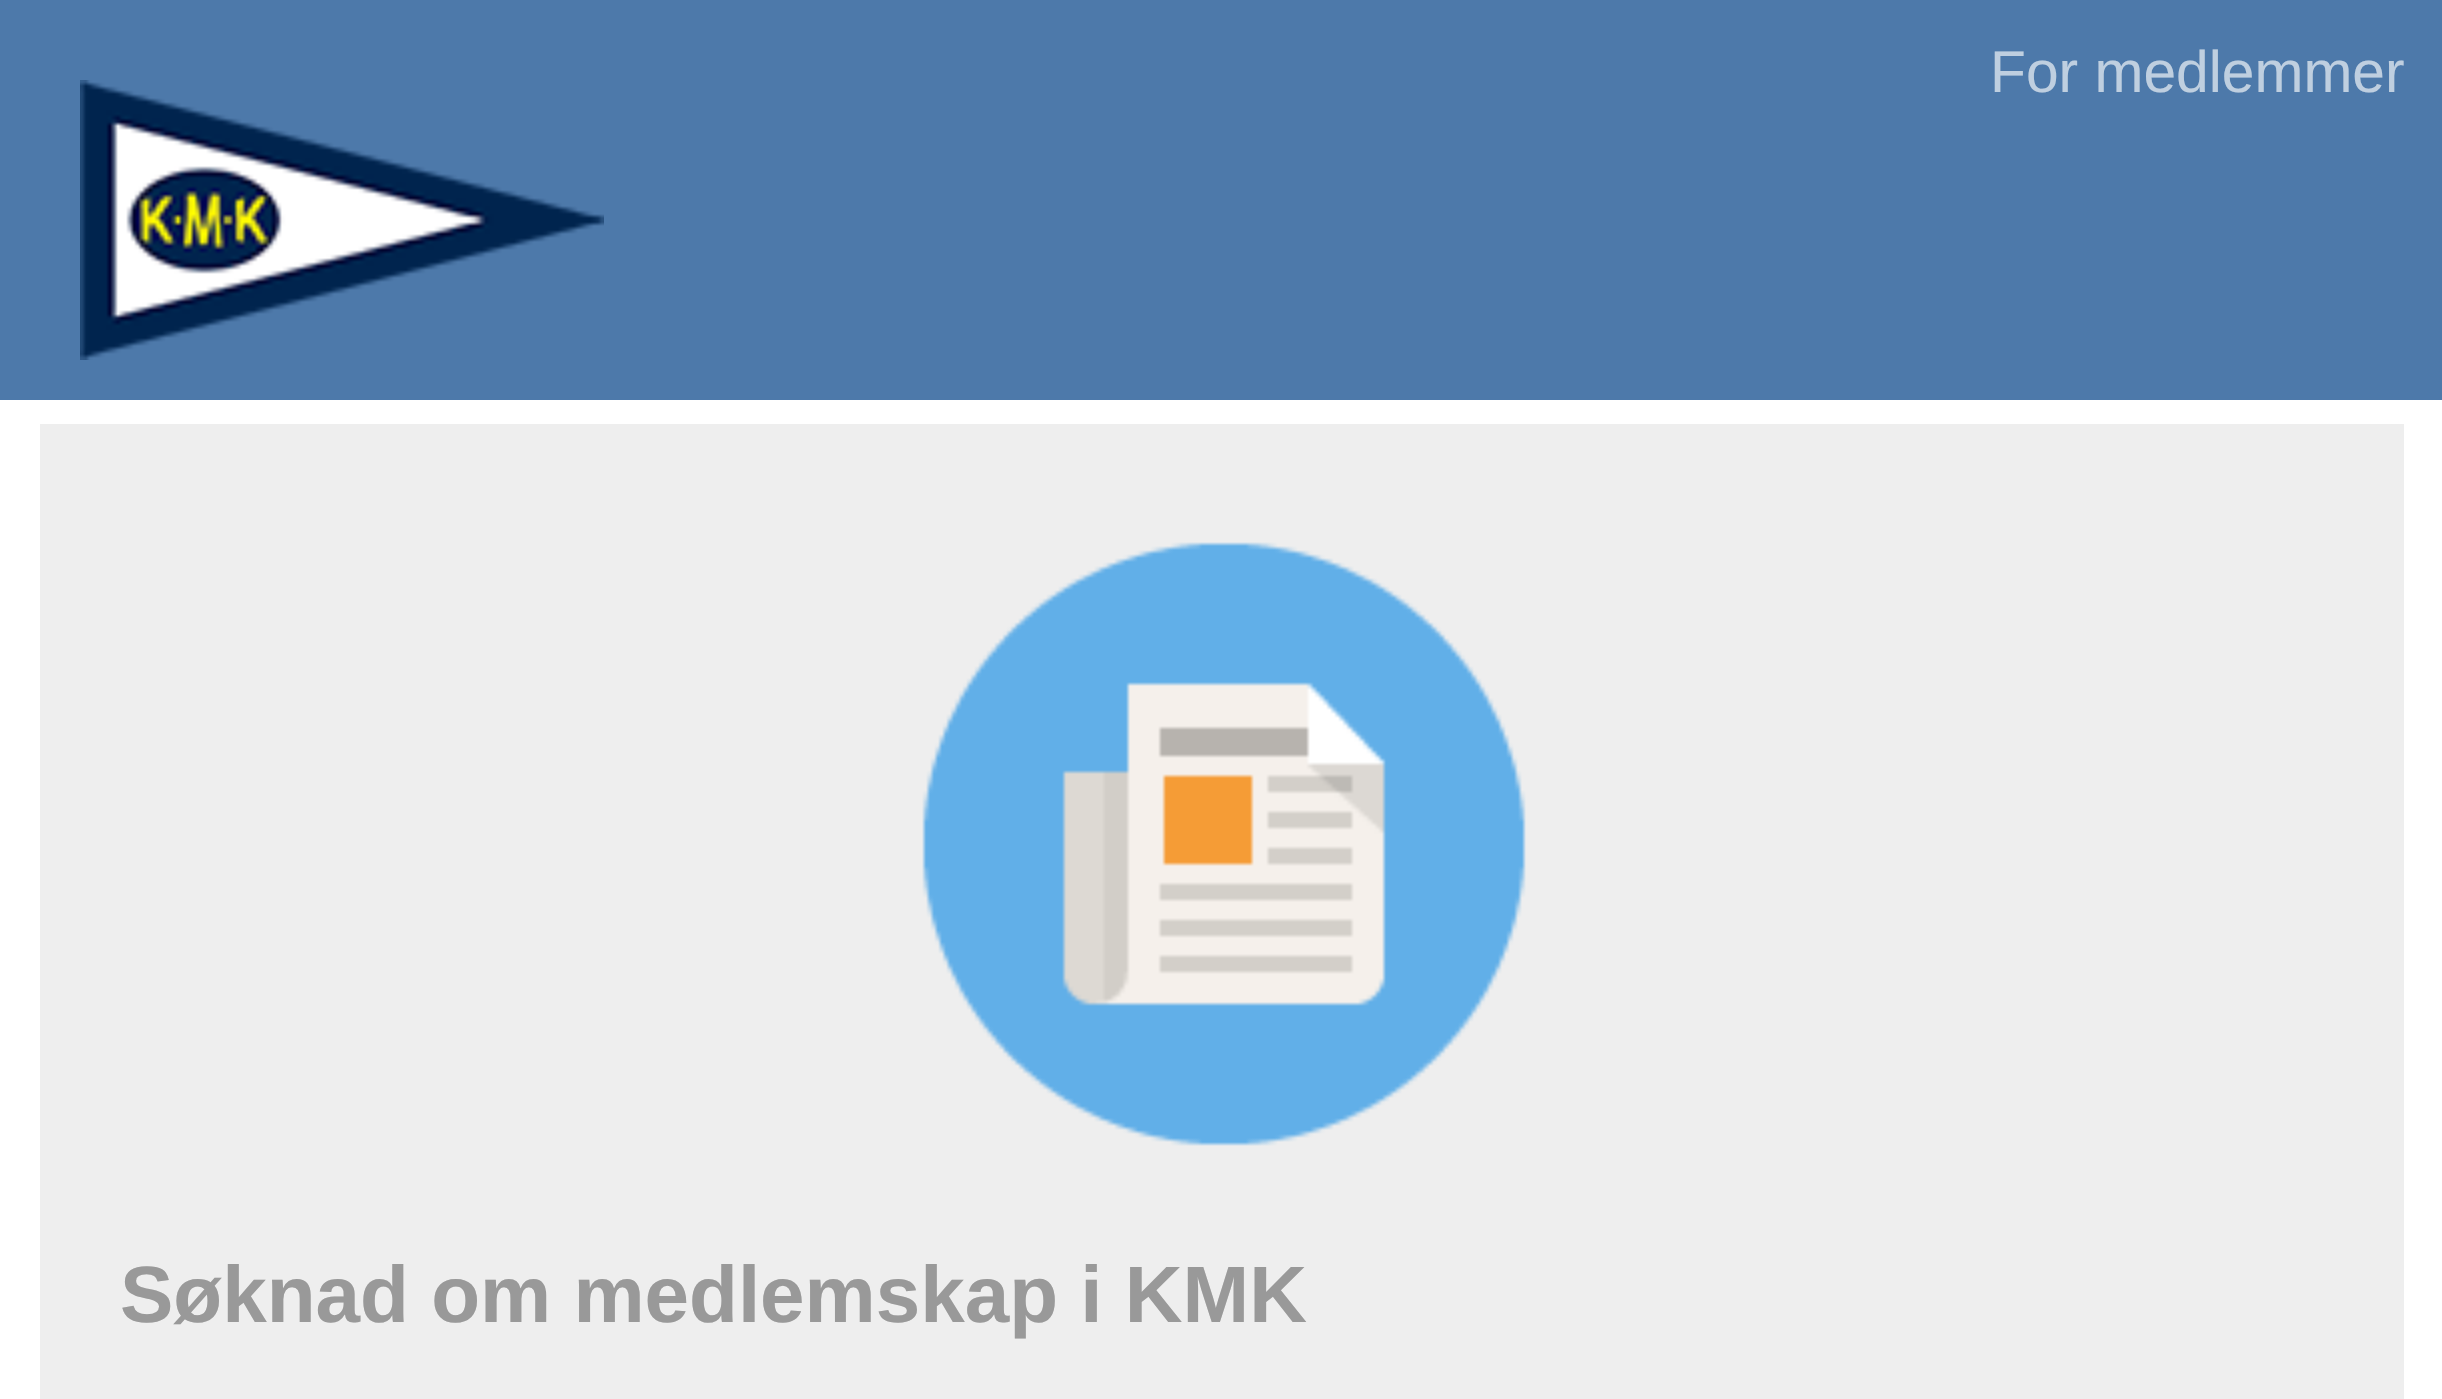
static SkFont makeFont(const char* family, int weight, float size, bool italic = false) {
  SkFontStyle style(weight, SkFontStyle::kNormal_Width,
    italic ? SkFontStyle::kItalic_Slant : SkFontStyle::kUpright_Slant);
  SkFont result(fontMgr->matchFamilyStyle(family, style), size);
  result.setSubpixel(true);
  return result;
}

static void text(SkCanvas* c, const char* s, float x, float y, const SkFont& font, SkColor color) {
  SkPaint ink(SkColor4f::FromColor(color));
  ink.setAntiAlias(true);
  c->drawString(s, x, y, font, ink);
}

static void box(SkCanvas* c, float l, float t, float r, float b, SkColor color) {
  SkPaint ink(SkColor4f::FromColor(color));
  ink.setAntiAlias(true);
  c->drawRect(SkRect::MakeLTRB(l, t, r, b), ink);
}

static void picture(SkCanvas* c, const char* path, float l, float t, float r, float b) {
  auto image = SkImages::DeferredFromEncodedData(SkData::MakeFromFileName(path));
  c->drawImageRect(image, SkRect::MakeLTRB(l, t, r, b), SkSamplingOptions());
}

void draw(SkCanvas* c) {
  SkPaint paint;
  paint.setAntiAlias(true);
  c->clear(0xffffffff);
  box(c, 0, 0, 2442, 400, 0xff4d79aa);
  SkFont face1 = makeFont("Liberation Sans", 400, 58.75f);
  text(c, "For medlemmer", 1990, 92, face1, 0xffbfcfe0);
  picture(c, "img_01.png", 80, 80, 604, 360);
  box(c, 40, 424, 2404, 1399, 0xffeeeeee);
  picture(c, "img_02.png", 922, 542, 1526, 1146);
  SkFont face2 = makeFont("Liberation Sans", 700, 80);
  text(c, "Søknad om medlemskap i KMK", 120, 1322, face2, 0xff999999);
}
